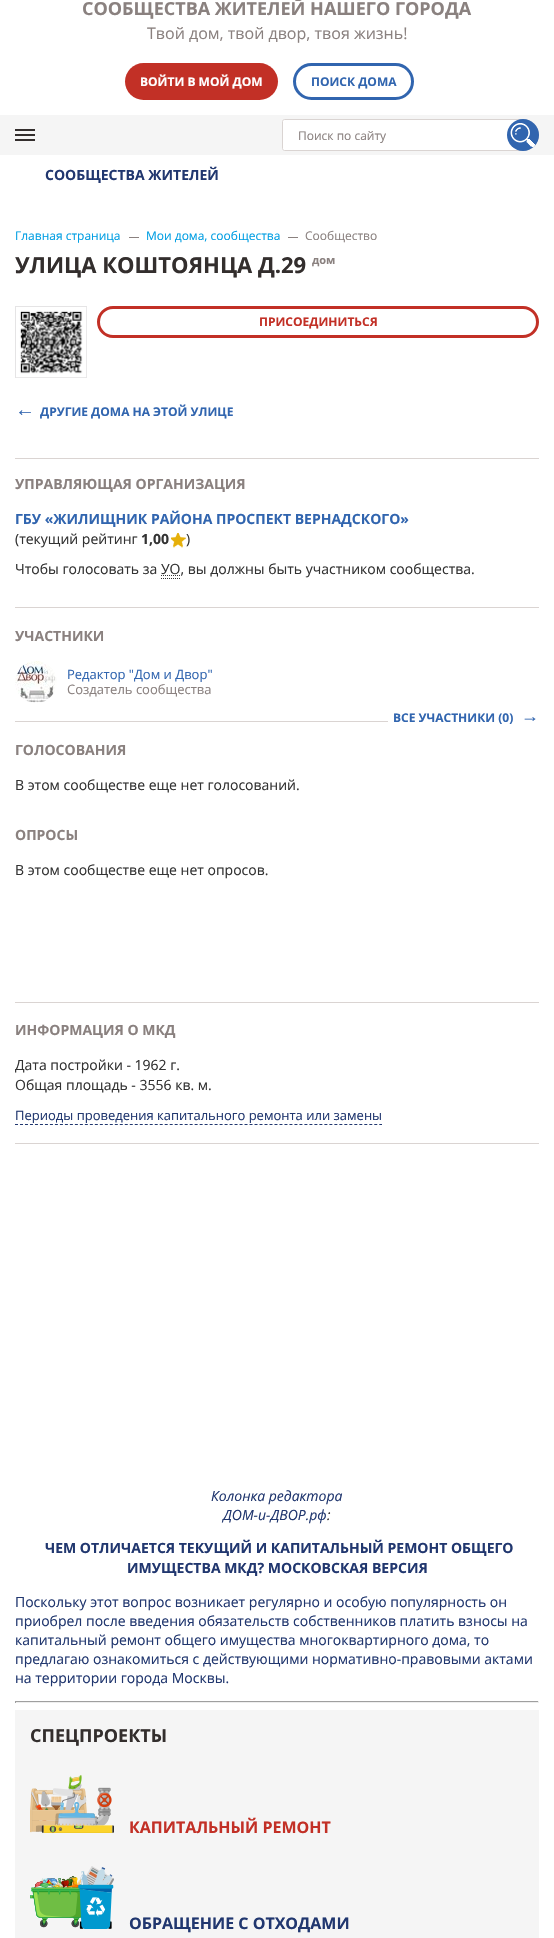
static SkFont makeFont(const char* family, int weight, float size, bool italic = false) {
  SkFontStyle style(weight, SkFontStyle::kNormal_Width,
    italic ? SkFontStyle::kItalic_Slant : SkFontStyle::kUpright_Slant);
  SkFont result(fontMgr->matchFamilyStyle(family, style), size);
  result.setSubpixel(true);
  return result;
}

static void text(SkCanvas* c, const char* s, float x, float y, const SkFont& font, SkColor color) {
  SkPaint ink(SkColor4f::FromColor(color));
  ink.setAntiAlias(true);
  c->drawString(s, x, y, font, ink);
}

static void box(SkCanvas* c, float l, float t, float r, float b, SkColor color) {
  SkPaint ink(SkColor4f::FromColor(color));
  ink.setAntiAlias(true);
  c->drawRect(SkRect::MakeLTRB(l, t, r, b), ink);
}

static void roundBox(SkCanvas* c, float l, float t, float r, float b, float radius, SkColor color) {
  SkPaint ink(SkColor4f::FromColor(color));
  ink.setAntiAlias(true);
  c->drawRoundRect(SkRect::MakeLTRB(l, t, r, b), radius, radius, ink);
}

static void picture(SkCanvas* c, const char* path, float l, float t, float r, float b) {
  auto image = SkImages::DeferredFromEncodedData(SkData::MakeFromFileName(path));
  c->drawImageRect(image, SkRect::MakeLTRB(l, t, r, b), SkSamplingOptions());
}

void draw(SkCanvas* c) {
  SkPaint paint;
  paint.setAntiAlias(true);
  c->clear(0xffffffff);
  box(c, 0, 115, 554, 155, 0xfff5f5f5);
  SkFont face1 = makeFont("Open Sans", 700, 18);
  text(c, "СООБЩЕСТВА ЖИТЕЛЕЙ НАШЕГО ГОРОДА", 82, 15, face1, 0xff8a817f);
  SkFont face2 = makeFont("Open Sans", 400, 16);
  text(c, "Твой дом, твой двор, твоя жизнь!", 147, 39, face2, 0xff8a817f);
  box(c, 15, 134, 35, 136, 0xff332e2d);
  box(c, 15, 129, 35, 131, 0xff332e2d);
  box(c, 15, 139, 35, 141, 0xff332e2d);
  roundBox(c, 125, 63, 278, 100, 18.5f, 0xffc23026);
  SkFont face3 = makeFont("Open Sans", 700, 12);
  text(c, "ВОЙТИ В МОЙ ДОМ", 140, 86, face3, 0xffffffff);
  paint.setStyle(SkPaint::kStroke_Style);
  paint.setStrokeWidth(3);
  paint.setColor(0xff3165af);
  c->drawRoundRect(SkRect::MakeLTRB(294.5f, 64.5f, 412.5f, 98.5f), 17, 17, paint);
  text(c, "ПОИСК ДОМА", 311, 86, face3, 0xff3165af);
  paint.setStyle(SkPaint::kFill_Style);
  paint.setColor(0xffffffff);
  c->drawPath(SkPathBuilder().moveTo(284.5f, 119.5f).lineTo(523, 119.5f).cubicTo(531.5f, 119.5f, 538.5f, 126.5f, 538.5f, 135).cubicTo(538.5f, 143.5f, 531.5f, 150.5f, 523, 150.5f).lineTo(284.5f, 150.5f).cubicTo(283.5f, 150.5f, 282.5f, 149.5f, 282.5f, 148.5f).lineTo(282.5f, 121.5f).cubicTo(282.5f, 120.5f, 283.5f, 119.5f, 284.5f, 119.5f).close().detach(), paint);
  paint.setStyle(SkPaint::kStroke_Style);
  paint.setStrokeWidth(1);
  paint.setColor(0xffdad4d2);
  c->drawPath(SkPathBuilder().moveTo(284.5f, 119.5f).lineTo(523, 119.5f).cubicTo(531.5f, 119.5f, 538.5f, 126.5f, 538.5f, 135).cubicTo(538.5f, 143.5f, 531.5f, 150.5f, 523, 150.5f).lineTo(284.5f, 150.5f).cubicTo(283.5f, 150.5f, 282.5f, 149.5f, 282.5f, 148.5f).lineTo(282.5f, 121.5f).cubicTo(282.5f, 120.5f, 283.5f, 119.5f, 284.5f, 119.5f).close().detach(), paint);
  SkFont face4 = makeFont("Open Sans", 400, 12);
  text(c, "Поиск по сайту", 298, 140, face4, 0xff8a817f);
  paint.setStyle(SkPaint::kFill_Style);
  paint.setColor(0xff3165af);
  c->drawCircle(523, 135, 16, paint);
  picture(c, "img_01.png", 510, 123, 535, 147);
  SkFont face5 = makeFont("Open Sans", 700, 14);
  text(c, "СООБЩЕСТВА ЖИТЕЛЕЙ", 45, 180, face5, 0xff21376f);
  text(c, "Главная страница", 15, 240, face4, 0xff009ee3);
  box(c, 129, 237, 139, 238, 0xff8a817f);
  text(c, "Мои дома, сообщества", 146, 240, face4, 0xff009ee3);
  box(c, 288, 237, 298, 238, 0xff8a817f);
  text(c, "Сообщество", 305, 240, face4, 0xff8a817f);
  SkFont face6 = makeFont("Open Sans", 700, 22);
  text(c, "УЛИЦА КОШТОЯНЦА Д.29", 15, 273, face6, 0xff332e2d);
  SkFont face7 = makeFont("Open Sans", 700, 11);
  text(c, "дом", 312, 264, face7, 0xff8a817f);
  paint.setStyle(SkPaint::kStroke_Style);
  paint.setColor(0xffe5e4e5);
  c->drawRect(SkRect::MakeLTRB(15.5f, 306.5f, 86.5f, 377.5f), paint);
  picture(c, "img_02.png", 16, 307, 87, 378);
  paint.setStrokeWidth(3);
  paint.setColor(0xffc23026);
  c->drawRoundRect(SkRect::MakeLTRB(98.5f, 307.5f, 537.5f, 336.5f), 14.5f, 14.5f, paint);
  text(c, "ПРИСОЕДИНИТЬСЯ", 259, 326, face3, 0xffc23026);
  SkFont face8 = makeFont("Liberation Sans", 700, 20);
  text(c, "←", 15, 416, face8, 0xff3165af);
  text(c, "ДРУГИЕ ДОМА НА ЭТОЙ УЛИЦЕ", 40, 416, face3, 0xff3165af);
  box(c, 15, 458, 539, 459, 0xffdad4d2);
  box(c, 15, 607, 539, 608, 0xffdad4d2);
  text(c, "УПРАВЛЯЮЩАЯ ОРГАНИЗАЦИЯ", 15, 489, face5, 0xff8a817f);
  text(c, "ГБУ «ЖИЛИЩНИК РАЙОНА ПРОСПЕКТ ВЕРНАДСКОГО»", 15, 524, face5, 0xff3165af);
  SkFont face9 = makeFont("Open Sans", 400, 14);
  text(c, "(текущий рейтинг", 15, 544, face9, 0xff333333);
  text(c, "1,00", 141, 544, face5, 0xff333333);
  picture(c, "img_03.png", 171, 533, 186, 548);
  text(c, ")", 186, 544, face9, 0xff333333);
  text(c, "Чтобы голосовать за УО, вы должны быть участником сообщества.", 15, 574, face9, 0xff333333);
  paint.setStrokeWidth(1);
  paint.setColor(0xff333333);
  paint.setPathEffect(SkDashPathEffect::Make({{1, 1}}, 0));
  c->drawPath(SkPathBuilder().moveTo(161, 578.5f).lineTo(181, 578.5f).moveTo(161, 575.5f).lineTo(180.5f, 575.5f).detach(), paint);
  paint.setPathEffect(nullptr);
  text(c, "УЧАСТНИКИ", 15, 641, face5, 0xff8a817f);
  box(c, 15, 721, 388, 722, 0xffdad4d2);
  picture(c, "img_04.png", 15, 661, 57, 703);
  SkFont face10 = makeFont("Open Sans", 400, 13);
  text(c, "Редактор \"Дом и Двор\"", 67, 679, face10, 0xff3165af);
  text(c, "Создатель сообщества", 67, 694, face10, 0xff8a817f);
  text(c, "ВСЕ УЧАСТНИКИ (0)", 393, 722, face3, 0xff3165af);
  SkFont face11 = makeFont("Liberation Sans", 700, 18);
  text(c, "→", 521, 722, face11, 0xff3165af);
  text(c, "ГОЛОСОВАНИЯ", 15, 755, face5, 0xff8a817f);
  text(c, "В этом сообществе еще нет голосований.", 15, 790, face9, 0xff333333);
  text(c, "ОПРОСЫ", 15, 840, face5, 0xff8a817f);
  text(c, "В этом сообществе еще нет опросов.", 15, 875, face9, 0xff333333);
  box(c, 15, 1002, 539, 1003, 0xffdad4d2);
  text(c, "ИНФОРМАЦИЯ О МКД", 15, 1035, face5, 0xff8a817f);
  box(c, 15, 1143, 539, 1144, 0xffdad4d2);
  text(c, "Дата постройки - 1962 г.", 15, 1070, face9, 0xff333333);
  text(c, "Общая площадь - 3556 кв. м.", 15, 1090, face9, 0xff333333);
  text(c, "Периоды проведения капитального ремонта или замены", 15, 1120, face10, 0xff21376f);
  paint.setColor(0xff21376f);
  paint.setPathEffect(SkDashPathEffect::Make({{3, 1.99f}}, 0));
  c->drawPath(SkPathBuilder().moveTo(15, 1124.5f).lineTo(382, 1124.5f).detach(), paint);
  paint.setPathEffect(nullptr);
  SkFont face12 = makeFont("Open Sans", 400, 14, true);
  text(c, "Колонка редактора", 211, 1501, face12, 0xff21376f);
  text(c, "ДОМ-и-ДВОР.рф", 223, 1520, face12, 0xff21376f);
  text(c, ":", 327, 1520, face12, 0xff332e2d);
  text(c, "ЧЕМ ОТЛИЧАЕТСЯ ТЕКУЩИЙ И КАПИТАЛЬНЫЙ РЕМОНТ ОБЩЕГО", 45, 1553, face5, 0xff21376f);
  text(c, "ИМУЩЕСТВА МКД? МОСКОВСКАЯ ВЕРСИЯ", 127, 1573, face5, 0xff21376f);
  text(c, "Поскольку этот вопрос возникает регулярно и особую популярность он", 15, 1607, face9, 0xff21376f);
  text(c, "приобрел после введения обязательств собственников платить взносы на", 15, 1626, face9, 0xff21376f);
  text(c, "капитальный ремонт общего имущества многоквартирного дома, то", 15, 1645, face9, 0xff21376f);
  text(c, "предлагаю ознакомиться с действующими нормативно-правовыми актами", 15, 1664, face9, 0xff21376f);
  text(c, "на территории города Москвы.", 15, 1683, face9, 0xff21376f);
  box(c, 15, 1701, 539, 1702, 0xff9f9f9f);
  box(c, 538, 1701, 539, 1703, 0xffeeeeee);
  box(c, 15, 1702, 539, 1703, 0xffeeeeee);
  box(c, 15, 1701, 16, 1703, 0xff9f9f9f);
  box(c, 15, 1710, 539, 1938, 0xfff5f5f5);
  text(c, "СПЕЦПРОЕКТЫ", 30, 1742, face1, 0xff332e2d);
  picture(c, "img_05.png", 30, 1775, 114, 1833);
  SkFont face13 = makeFont("Open Sans", 700, 16);
  text(c, "КАПИТАЛЬНЫЙ РЕМОНТ", 129, 1833, face13, 0xffc23026);
  picture(c, "img_06.png", 30, 1866, 114, 1929);
  text(c, "ОБРАЩЕНИЕ С ОТХОДАМИ", 129, 1929, face13, 0xff21376f);
}
